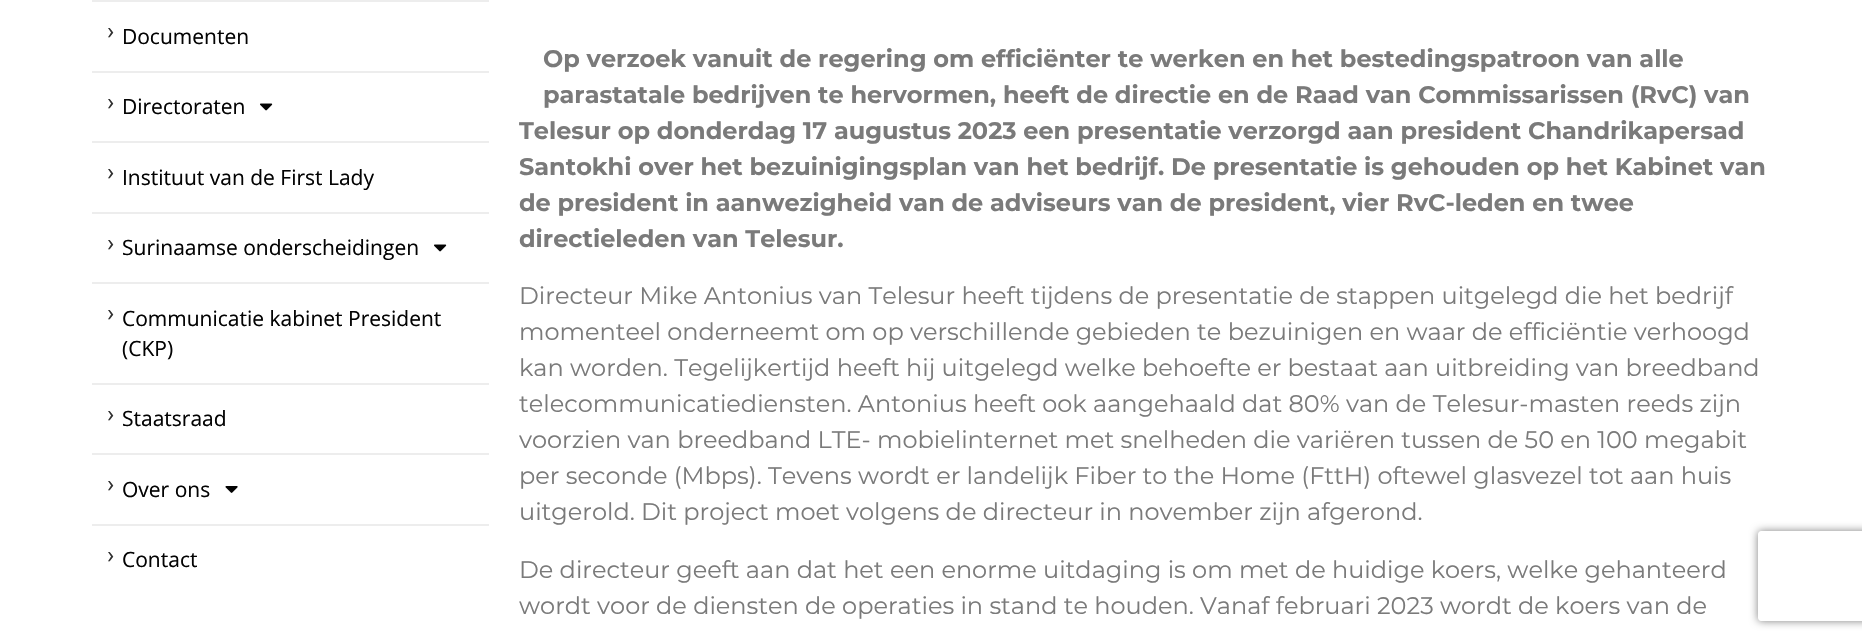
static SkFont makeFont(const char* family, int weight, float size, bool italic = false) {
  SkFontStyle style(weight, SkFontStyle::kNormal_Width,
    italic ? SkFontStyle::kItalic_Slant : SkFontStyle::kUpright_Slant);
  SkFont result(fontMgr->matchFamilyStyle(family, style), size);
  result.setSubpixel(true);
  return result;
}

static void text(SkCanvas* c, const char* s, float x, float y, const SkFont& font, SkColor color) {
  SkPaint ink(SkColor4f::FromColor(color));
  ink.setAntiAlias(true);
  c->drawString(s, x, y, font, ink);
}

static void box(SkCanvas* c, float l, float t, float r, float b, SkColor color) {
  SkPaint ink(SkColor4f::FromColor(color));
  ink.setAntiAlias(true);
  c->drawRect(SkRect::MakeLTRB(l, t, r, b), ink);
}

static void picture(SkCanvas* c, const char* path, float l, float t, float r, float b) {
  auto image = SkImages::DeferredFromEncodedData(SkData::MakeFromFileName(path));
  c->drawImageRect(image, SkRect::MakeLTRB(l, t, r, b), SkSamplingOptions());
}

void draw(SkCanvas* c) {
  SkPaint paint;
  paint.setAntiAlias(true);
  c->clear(0xffffffff);
  box(c, 92, 0, 489, 2, 0xffededed);
  SkFont face1 = makeFont("Roboto", 400, 24);
  text(c, "›", 107, 39, face1, 0xff333333);
  box(c, 92, 71, 489, 73, 0xffededed);
  SkFont face2 = makeFont("Open Sans", 400, 21);
  text(c, "Documenten", 122, 44, face2, 0xff030303);
  text(c, "›", 107, 110, face1, 0xff333333);
  box(c, 92, 141, 489, 143, 0xffededed);
  text(c, "Directoraten", 122, 114, face2, 0xff030303);
  picture(c, "img_01.png", 260, 103, 273, 111);
  text(c, "›", 107, 180, face1, 0xff333333);
  box(c, 92, 212, 489, 214, 0xffededed);
  text(c, "Instituut van de First Lady", 122, 185, face2, 0xff030303);
  text(c, "›", 107, 251, face1, 0xff333333);
  box(c, 92, 282, 489, 284, 0xffededed);
  text(c, "Surinaamse onderscheidingen", 122, 255, face2, 0xff030303);
  picture(c, "img_01.png", 434, 244, 447, 252);
  text(c, "›", 107, 321, face1, 0xff333333);
  box(c, 92, 383, 489, 385, 0xffededed);
  text(c, "Communicatie kabinet President", 122, 326, face2, 0xff030303);
  text(c, "(CKP)", 122, 356, face2, 0xff030303);
  text(c, "›", 107, 422, face1, 0xff333333);
  box(c, 92, 453, 489, 455, 0xffededed);
  text(c, "Staatsraad", 122, 426, face2, 0xff030303);
  text(c, "›", 107, 492, face1, 0xff333333);
  box(c, 92, 524, 489, 526, 0xffededed);
  text(c, "Over ons", 122, 497, face2, 0xff030303);
  picture(c, "img_02.png", 225, 486, 238, 493);
  text(c, "›", 107, 563, face1, 0xff333333);
  text(c, "Contact", 122, 567, face2, 0xff030303);
  SkFont face3 = makeFont("Montserrat", 700, 24);
  text(c, "Op verzoek vanuit de regering om efficiënter te werken en het bestedingspatroon van alle", 543, 67, face3, 0xff7a7a7a);
  text(c, "parastatale bedrijven te hervormen, heeft de directie en de Raad van Commissarissen (RvC) van", 543, 103, face3, 0xff7a7a7a);
  text(c, "Telesur op donderdag 17 augustus 2023 een presentatie verzorgd aan president Chandrikapersad", 519, 139, face3, 0xff7a7a7a);
  text(c, "Santokhi over het bezuinigingsplan van het bedrijf. De presentatie is gehouden op het Kabinet van", 519, 175, face3, 0xff7a7a7a);
  text(c, "de president in aanwezigheid van de adviseurs van de president, vier RvC-leden en twee", 519, 211, face3, 0xff7a7a7a);
  text(c, "directieleden van Telesur.", 519, 247, face3, 0xff7a7a7a);
  SkFont face4 = makeFont("Montserrat", 400, 24);
  text(c, "Directeur Mike Antonius van Telesur heeft tijdens de presentatie de stappen uitgelegd die het bedrijf", 519, 304, face4, 0xff7a7a7a);
  text(c, "momenteel onderneemt om op verschillende gebieden te bezuinigen en waar de efficiëntie verhoogd", 519, 340, face4, 0xff7a7a7a);
  text(c, "kan worden. Tegelijkertijd heeft hij uitgelegd welke behoefte er bestaat aan uitbreiding van breedband", 519, 376, face4, 0xff7a7a7a);
  text(c, "telecommunicatiediensten. Antonius heeft ook aangehaald dat 80% van de Telesur-masten reeds zijn", 519, 412, face4, 0xff7a7a7a);
  text(c, "voorzien van breedband LTE- mobielinternet met snelheden die variëren tussen de 50 en 100 megabit", 519, 448, face4, 0xff7a7a7a);
  text(c, "per seconde (Mbps). Tevens wordt er landelijk Fiber to the Home (FttH) oftewel glasvezel tot aan huis", 519, 484, face4, 0xff7a7a7a);
  text(c, "uitgerold. Dit project moet volgens de directeur in november zijn afgerond.", 519, 520, face4, 0xff7a7a7a);
  text(c, "De directeur geeft aan dat het een enorme uitdaging is om met de huidige koers, welke gehanteerd", 519, 578, face4, 0xff7a7a7a);
  text(c, "wordt voor de diensten de operaties in stand te houden. Vanaf februari 2023 wordt de koers van de", 519, 614, face4, 0xff7a7a7a);
  c->save();
  c->clipPath(SkPathBuilder(SkPathFillType::kEvenOdd).moveTo(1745, 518).lineTo(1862, 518).lineTo(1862, 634).lineTo(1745, 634).close().moveTo(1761, 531).lineTo(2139, 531).cubicTo(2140.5f, 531, 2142, 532.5f, 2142, 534).lineTo(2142, 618).cubicTo(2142, 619.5f, 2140.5f, 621, 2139, 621).lineTo(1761, 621).cubicTo(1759.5f, 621, 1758, 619.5f, 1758, 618).lineTo(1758, 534).cubicTo(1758, 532.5f, 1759.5f, 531, 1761, 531).close().detach(), true);
  paint.setColor(0xff808080);
  paint.setMaskFilter(SkMaskFilter::MakeBlur(kNormal_SkBlurStyle, 4));
  c->drawRoundRect(SkRect::MakeLTRB(1758, 531, 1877, 621), 3, 3, paint);
  paint.setMaskFilter(nullptr);
  c->restore();
}
